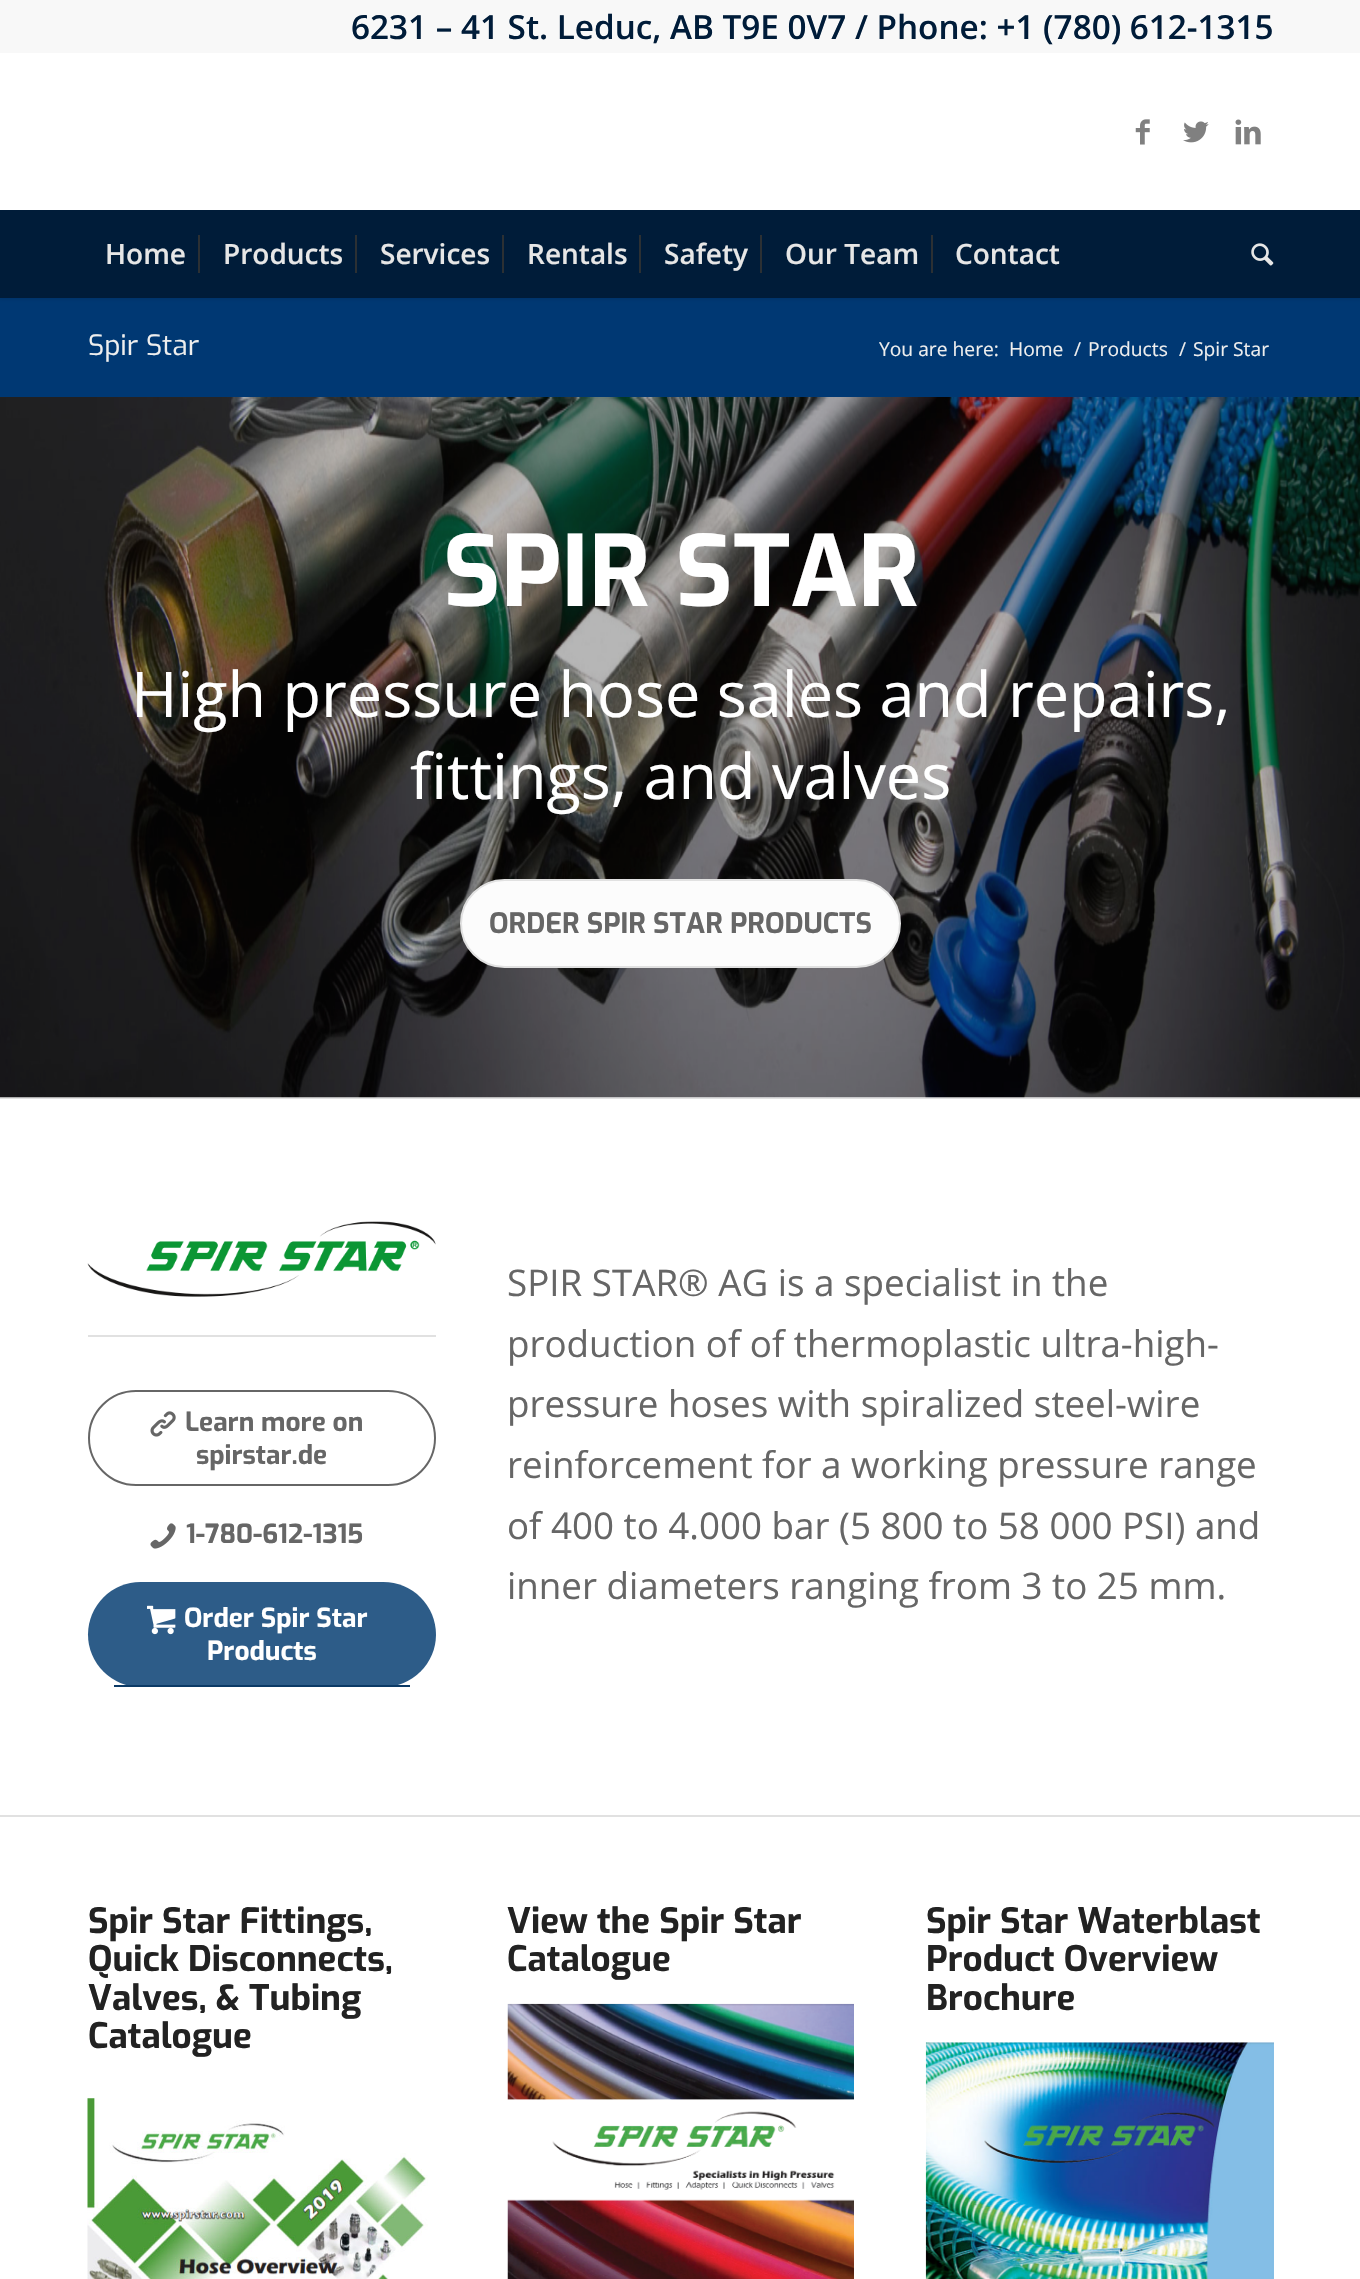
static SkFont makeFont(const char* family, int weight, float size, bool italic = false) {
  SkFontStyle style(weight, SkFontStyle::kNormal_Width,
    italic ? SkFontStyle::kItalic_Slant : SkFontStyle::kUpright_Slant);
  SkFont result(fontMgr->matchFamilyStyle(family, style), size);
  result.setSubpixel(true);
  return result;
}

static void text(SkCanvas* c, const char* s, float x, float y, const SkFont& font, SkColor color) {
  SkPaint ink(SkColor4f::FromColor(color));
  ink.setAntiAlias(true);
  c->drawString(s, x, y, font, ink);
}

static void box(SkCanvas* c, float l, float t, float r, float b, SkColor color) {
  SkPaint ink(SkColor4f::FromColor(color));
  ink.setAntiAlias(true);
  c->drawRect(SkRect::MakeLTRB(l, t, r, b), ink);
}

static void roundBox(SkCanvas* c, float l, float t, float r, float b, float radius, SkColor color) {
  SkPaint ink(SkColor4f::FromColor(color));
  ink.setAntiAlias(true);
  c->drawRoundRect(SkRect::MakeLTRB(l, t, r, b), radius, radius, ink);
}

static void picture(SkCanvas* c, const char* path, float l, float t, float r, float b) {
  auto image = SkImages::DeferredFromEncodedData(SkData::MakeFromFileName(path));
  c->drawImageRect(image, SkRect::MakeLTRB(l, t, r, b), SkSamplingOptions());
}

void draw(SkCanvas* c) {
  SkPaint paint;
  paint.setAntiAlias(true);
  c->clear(0xffffffff);
  box(c, 0, 298, 1360, 397, 0xff003873);
  paint.setColor(0x1a000000);
  paint.setMaskFilter(SkMaskFilter::MakeBlur(kNormal_SkBlurStyle, 2));
  c->drawRect(SkRect::MakeLTRB(-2, -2, 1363, 299), paint);
  paint.setMaskFilter(nullptr);
  box(c, 0, 0, 1360, 53, 0xfff8f8f8);
  SkFont face1 = makeFont("Open Sans", 600, 33.25f);
  text(c, "6231 – 41 St. Leduc, AB T9E 0V7 / Phone: +1 (780) 612-1315", 351, 39, face1, 0xff001c39);
  box(c, 0, 53, 1360, 210, 0xffffffff);
  picture(c, "img_01.png", 1135, 119, 1150, 145);
  picture(c, "img_02.png", 1183, 121, 1209, 143);
  picture(c, "img_03.png", 1235, 119, 1261, 145);
  box(c, 0, 210, 1360, 298, 0xff001c39);
  SkFont face2 = makeFont("Open Sans", 600, 28);
  text(c, "Home", 105, 264, face2, 0xffe6e6e6);
  text(c, "Products", 223, 264, face2, 0xffe6e6e6);
  box(c, 198, 235, 200, 273, 0xff2c3033);
  text(c, "Services", 380, 264, face2, 0xffe6e6e6);
  box(c, 355, 235, 357, 273, 0xff2c3033);
  text(c, "Rentals", 527, 264, face2, 0xffe6e6e6);
  box(c, 502, 235, 504, 273, 0xff2c3033);
  text(c, "Safety", 664, 264, face2, 0xffe6e6e6);
  box(c, 639, 235, 641, 273, 0xff2c3033);
  text(c, "Our Team", 785, 264, face2, 0xffe6e6e6);
  box(c, 760, 235, 762, 273, 0xff2c3033);
  text(c, "Contact", 955, 264, face2, 0xffe6e6e6);
  box(c, 931, 235, 933, 273, 0xff2c3033);
  picture(c, "img_04.png", 1251, 243, 1274, 266);
  SkFont face3 = makeFont("Exo", 400, 28);
  text(c, "Spir Star", 88, 355, face3, 0xffeeeeee);
  SkFont face4 = makeFont("Open Sans", 400, 19.25f);
  text(c, "You are here:", 879, 356, face4, 0xffeeeeee);
  text(c, "Home", 1009, 356, face4, 0xffeeeeee);
  text(c, "/", 1074, 356, face4, 0xffeeeeee);
  text(c, "Products", 1088, 356, face4, 0xffeeeeee);
  text(c, "/", 1179, 356, face4, 0xffeeeeee);
  text(c, "Spir Star", 1193, 356, face4, 0xffeeeeee);
  box(c, 0, 1097, 1360, 1099, 0xffe1e1e1);
  picture(c, "img_05.png", 0, 397, 1360, 1098);
  SkFont face5 = makeFont("Exo", 700, 98);
  text(c, "SPIR STAR", 443, 606, face5, 0xffffffff);
  SkFont face6 = makeFont("Open Sans", 400, 63);
  text(c, "High pressure hose sales and repairs,", 131, 717, face6, 0xffffffff);
  text(c, "fittings, and valves", 410, 799, face6, 0xffffffff);
  paint.setColor(0xfffcfcfc);
  c->drawRoundRect(SkRect::MakeLTRB(461, 880, 900, 967), 43.5f, 43.5f, paint);
  paint.setStyle(SkPaint::kStroke_Style);
  paint.setStrokeWidth(2);
  paint.setColor(0xffe1e1e1);
  c->drawRoundRect(SkRect::MakeLTRB(461, 880, 900, 967), 43.5f, 43.5f, paint);
  SkFont face7 = makeFont("Exo", 700, 28);
  text(c, "ORDER SPIR STAR PRODUCTS", 489, 933, face7, 0xff666666);
  picture(c, "img_06.png", 87, 1221, 436, 1297);
  box(c, 88, 1335, 436, 1337, 0xffe1e1e1);
  paint.setColor(0xff666666);
  c->drawRoundRect(SkRect::MakeLTRB(89, 1391, 435, 1485), 47, 47, paint);
  picture(c, "img_07.png", 150, 1411, 176, 1437);
  SkFont face8 = makeFont("Exo", 700, 26.25f);
  text(c, "Learn more on", 185, 1431, face8, 0xff666666);
  text(c, "spirstar.de", 196, 1464, face8, 0xff666666);
  picture(c, "img_08.png", 150, 1523, 176, 1549);
  text(c, "1-780-612-1315", 186, 1543, face8, 0xff666666);
  roundBox(c, 88, 1582, 436, 1687, 52.5f, 0xff2d5c88);
  box(c, 114, 1685, 410, 1687, 0xff0b3a66);
  picture(c, "img_09.png", 147, 1605, 176, 1635);
  text(c, "Order Spir Star", 184, 1627, face8, 0xffffffff);
  text(c, "Products", 207, 1660, face8, 0xffffffff);
  SkFont face9 = makeFont("Open Sans", 400, 36.75f);
  text(c, "SPIR STAR® AG is a specialist in the", 507, 1296, face9, 0xff666666);
  text(c, "production of of thermoplastic ultra-high-", 507, 1357, face9, 0xff666666);
  text(c, "pressure hoses with spiralized steel-wire", 507, 1417, face9, 0xff666666);
  text(c, "reinforcement for a working pressure range", 507, 1478, face9, 0xff666666);
  text(c, "of 400 to 4.000 bar (5 800 to 58 000 PSI) and", 507, 1539, face9, 0xff666666);
  text(c, "inner diameters ranging from 3 to 25 mm.", 507, 1599, face9, 0xff666666);
  box(c, 0, 1815, 1360, 1817, 0xffe1e1e1);
  SkFont face10 = makeFont("Exo", 700, 35);
  text(c, "Spir Star Fittings,", 88, 1933, face10, 0xff222222);
  text(c, "Quick Disconnects,", 88, 1971, face10, 0xff222222);
  text(c, "Valves, & Tubing", 88, 2010, face10, 0xff222222);
  text(c, "Catalogue", 88, 2048, face10, 0xff222222);
  picture(c, "img_10.png", 87, 2098, 428, 2279);
  text(c, "View the Spir Star", 507, 1933, face10, 0xff222222);
  text(c, "Catalogue", 507, 1971, face10, 0xff222222);
  picture(c, "img_11.png", 507, 2003, 854, 2279);
  text(c, "Spir Star Waterblast", 926, 1933, face10, 0xff222222);
  text(c, "Product Overview", 926, 1971, face10, 0xff222222);
  text(c, "Brochure", 926, 2010, face10, 0xff222222);
  picture(c, "img_12.png", 925, 2042, 1274, 2279);
}
